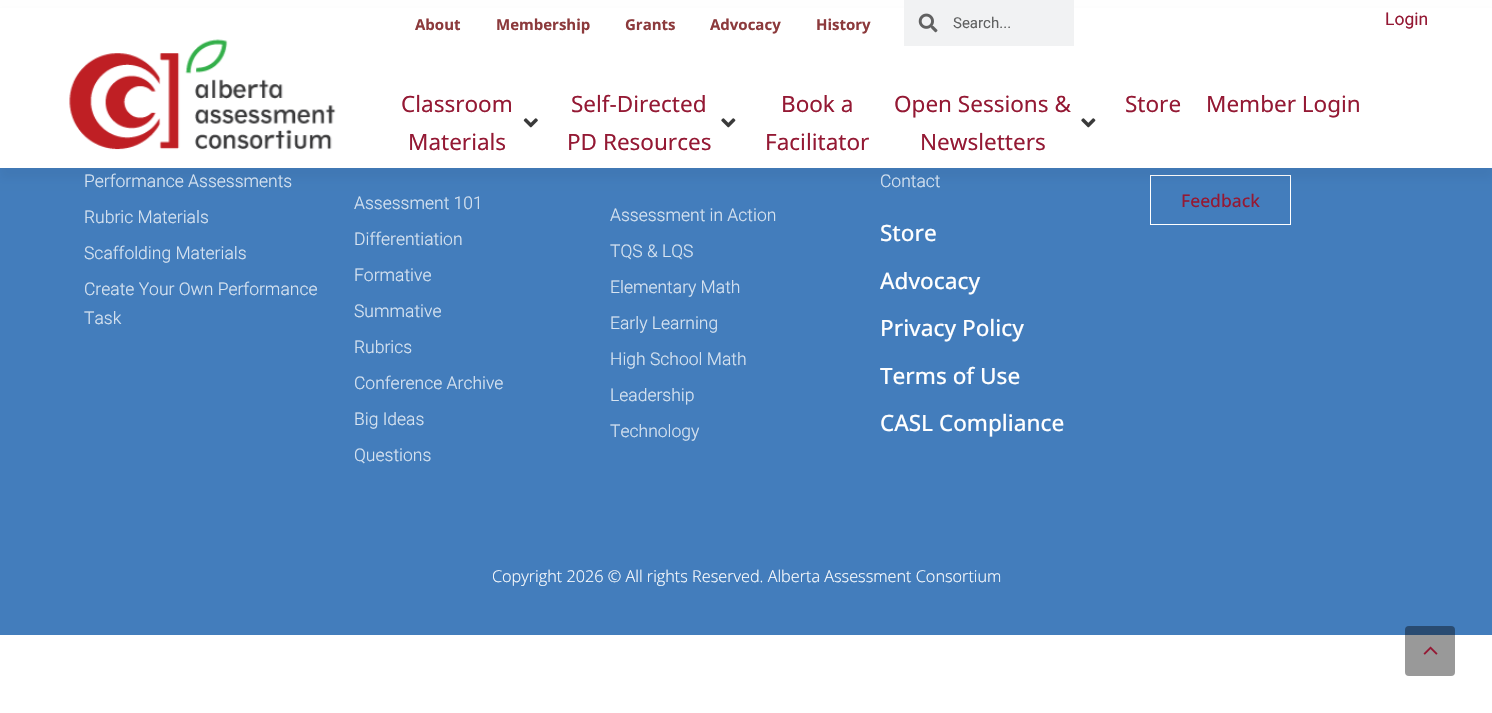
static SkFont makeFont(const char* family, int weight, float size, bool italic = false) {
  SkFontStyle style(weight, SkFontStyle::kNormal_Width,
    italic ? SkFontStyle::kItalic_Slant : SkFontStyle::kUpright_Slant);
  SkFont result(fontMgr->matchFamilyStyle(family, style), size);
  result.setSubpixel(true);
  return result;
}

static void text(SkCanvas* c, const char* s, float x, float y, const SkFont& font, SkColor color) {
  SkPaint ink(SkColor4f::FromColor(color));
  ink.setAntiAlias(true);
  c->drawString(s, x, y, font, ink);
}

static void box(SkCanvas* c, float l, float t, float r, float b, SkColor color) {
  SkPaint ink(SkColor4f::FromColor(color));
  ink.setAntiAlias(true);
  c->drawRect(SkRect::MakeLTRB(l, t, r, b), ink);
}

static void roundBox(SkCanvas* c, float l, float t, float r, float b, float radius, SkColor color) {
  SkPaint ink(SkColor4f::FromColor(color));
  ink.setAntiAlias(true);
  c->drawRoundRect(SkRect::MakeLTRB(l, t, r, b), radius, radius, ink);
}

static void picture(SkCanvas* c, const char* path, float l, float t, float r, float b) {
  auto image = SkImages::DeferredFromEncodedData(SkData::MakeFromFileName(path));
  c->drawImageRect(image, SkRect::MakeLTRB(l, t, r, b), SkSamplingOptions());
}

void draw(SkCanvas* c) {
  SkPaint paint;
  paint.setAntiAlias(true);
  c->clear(0xffffffff);
  box(c, 0, 168, 1492, 635, 0xff437dbc);
  paint.setStyle(SkPaint::kStroke_Style);
  paint.setStrokeWidth(1);
  paint.setColor(0xffffffff);
  c->drawRect(SkRect::MakeLTRB(1150.5f, 175.5f, 1290.5f, 224.5f), paint);
  paint.setStyle(SkPaint::kFill_Style);
  paint.setColor(0x0a000000);
  paint.setMaskFilter(SkMaskFilter::MakeBlur(kNormal_SkBlurStyle, 4));
  c->drawRect(SkRect::MakeLTRB(0, 11, 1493, 179), paint);
  paint.setMaskFilter(nullptr);
  box(c, 0, 8, 1492, 168, 0xffffffff);
  picture(c, "img_01.png", 69, 39, 336, 150);
  SkFont face1 = makeFont("Open Sans", 700, 15);
  text(c, "About", 415, 30, face1, 0xff8c3a3c);
  text(c, "Membership", 496, 30, face1, 0xff8c3a3c);
  text(c, "Grants", 625, 30, face1, 0xff8c3a3c);
  text(c, "Advocacy", 710, 30, face1, 0xff8c3a3c);
  text(c, "History", 816, 30, face1, 0xff8c3a3c);
  box(c, 904, 0, 1074, 46, 0xfff1f2f3);
  picture(c, "img_02.png", 918, 13, 938, 33);
  SkFont face2 = makeFont("Roboto", 400, 15);
  text(c, "Search...", 953, 28, face2, 0xff606161);
  SkFont face3 = makeFont("Roboto", 400, 17.5f);
  text(c, "Login", 1385, 25, face3, 0xff941934);
  SkFont face4 = makeFont("Noto Sans", 400, 22.5f);
  text(c, "Classroom", 401, 112, face4, 0xff941934);
  text(c, "Materials", 408, 150, face4, 0xff941934);
  picture(c, "img_03.png", 523, 118, 538, 128);
  text(c, "Self-Directed", 571, 112, face4, 0xff941934);
  text(c, "PD Resources", 567, 150, face4, 0xff941934);
  picture(c, "img_04.png", 721, 118, 736, 128);
  text(c, "Book a", 781, 112, face4, 0xff941934);
  text(c, "Facilitator", 765, 150, face4, 0xff941934);
  text(c, "Open Sessions &", 894, 112, face4, 0xff941934);
  text(c, "Newsletters", 920, 150, face4, 0xff941934);
  picture(c, "img_04.png", 1081, 118, 1096, 128);
  text(c, "Store", 1125, 112, face4, 0xff941934);
  text(c, "Member Login", 1206, 112, face4, 0xff941934);
  SkFont face5 = makeFont("Roboto", 300, 17.5f);
  text(c, "Performance Assessments", 84, 187, face5, 0xffd8e4f1);
  text(c, "Rubric Materials", 84, 223, face5, 0xffd8e4f1);
  text(c, "Scaffolding Materials", 84, 259, face5, 0xffd8e4f1);
  text(c, "Create Your Own Performance", 84, 295, face5, 0xffd8e4f1);
  text(c, "Task", 84, 324, face5, 0xffd8e4f1);
  text(c, "Assessment 101", 354, 209, face5, 0xffd8e4f1);
  text(c, "Differentiation", 354, 245, face5, 0xffd8e4f1);
  text(c, "Formative", 354, 281, face5, 0xffd8e4f1);
  text(c, "Summative", 354, 317, face5, 0xffd8e4f1);
  text(c, "Rubrics", 354, 353, face5, 0xffd8e4f1);
  text(c, "Conference Archive", 354, 389, face5, 0xffd8e4f1);
  text(c, "Big Ideas", 354, 425, face5, 0xffd8e4f1);
  text(c, "Questions", 354, 461, face5, 0xffd8e4f1);
  text(c, "Assessment in Action", 610, 221, face5, 0xffd8e4f1);
  text(c, "TQS & LQS", 610, 257, face5, 0xffd8e4f1);
  text(c, "Elementary Math", 610, 293, face5, 0xffd8e4f1);
  text(c, "Early Learning", 610, 329, face5, 0xffd8e4f1);
  text(c, "High School Math", 610, 365, face5, 0xffd8e4f1);
  text(c, "Leadership", 610, 401, face5, 0xffd8e4f1);
  text(c, "Technology", 610, 437, face5, 0xffd8e4f1);
  text(c, "Contact", 880, 187, face5, 0xffd8e4f1);
  SkFont face6 = makeFont("Open Sans", 500, 22.5f);
  text(c, "Store", 880, 241, face6, 0xffffffff);
  text(c, "Advocacy", 880, 289, face6, 0xffffffff);
  text(c, "Privacy Policy", 880, 336, face6, 0xffffffff);
  text(c, "Terms of Use", 880, 384, face6, 0xffffffff);
  text(c, "CASL Compliance", 880, 431, face6, 0xffffffff);
  SkFont face7 = makeFont("Open Sans", 500, 17.5f);
  text(c, "Feedback", 1181, 207, face7, 0xff941934);
  SkFont face8 = makeFont("Open Sans", 300, 16.25f);
  text(c, "Copyright 2026 © All rights Reserved. Alberta Assessment Consortium", 492, 582, face8, 0xffffffff);
  roundBox(c, 1405, 626, 1455, 676, 4, 0x66000000);
  picture(c, "img_05.png", 1423, 646, 1438, 655);
}
